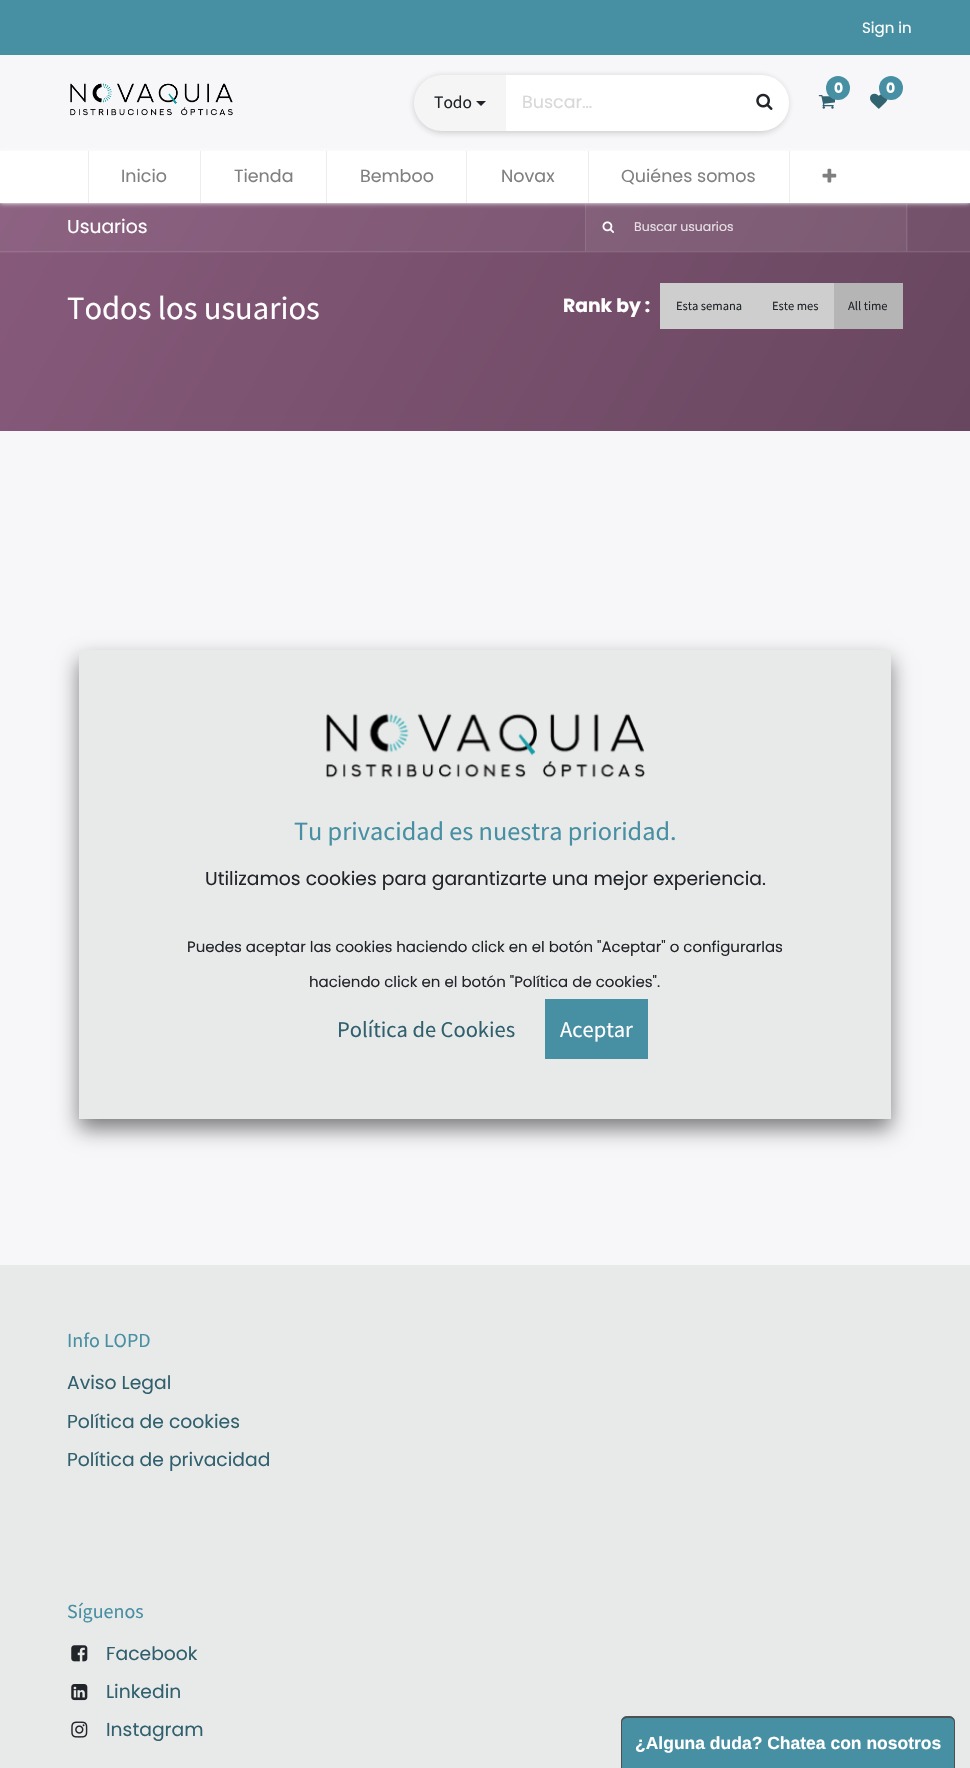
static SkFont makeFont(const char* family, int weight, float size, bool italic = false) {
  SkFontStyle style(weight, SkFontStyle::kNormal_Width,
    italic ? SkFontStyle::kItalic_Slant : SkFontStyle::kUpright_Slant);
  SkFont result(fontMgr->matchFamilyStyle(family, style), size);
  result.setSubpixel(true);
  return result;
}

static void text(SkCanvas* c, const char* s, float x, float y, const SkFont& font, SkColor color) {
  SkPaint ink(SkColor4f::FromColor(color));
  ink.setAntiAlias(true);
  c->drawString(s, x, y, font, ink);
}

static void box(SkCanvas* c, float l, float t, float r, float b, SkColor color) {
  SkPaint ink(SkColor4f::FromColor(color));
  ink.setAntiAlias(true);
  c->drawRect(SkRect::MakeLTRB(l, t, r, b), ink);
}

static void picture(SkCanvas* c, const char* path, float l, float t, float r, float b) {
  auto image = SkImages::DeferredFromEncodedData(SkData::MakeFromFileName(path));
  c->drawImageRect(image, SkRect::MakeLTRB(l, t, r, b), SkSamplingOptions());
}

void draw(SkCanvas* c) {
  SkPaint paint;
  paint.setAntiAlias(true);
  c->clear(0xfff7f7fa);
  box(c, 0, 0, 970, 55, 0xff478fa2);
  SkFont face1 = makeFont("Poppins", 400, 15);
  text(c, "Sign in", 862, 33, face1, 0xffffffff);
  picture(c, "img_01.png", 70, 83, 233, 116);
  picture(c, "img_02.png", 818, 95, 835, 109);
  paint.setColor(0xff478fa2);
  c->drawCircle(838, 88, 12, paint);
  SkFont face2 = makeFont("Poppins", 700, 14);
  text(c, "0", 834, 93, face2, 0xffffffff);
  picture(c, "img_03.png", 870, 93, 888, 109);
  c->drawCircle(891, 88, 12, paint);
  text(c, "0", 886, 93, face2, 0xffffffff);
  paint.setColor(0x33202124);
  paint.setMaskFilter(SkMaskFilter::MakeBlur(kNormal_SkBlurStyle, 3));
  c->drawRoundRect(SkRect::MakeLTRB(414, 76, 788, 133), 28.5f, 28.5f, paint);
  paint.setMaskFilter(nullptr);
  paint.setColor(0xfff5f5f5);
  c->drawPath(SkPathBuilder().moveTo(442, 75).lineTo(506, 75).lineTo(506, 131).lineTo(442, 131).cubicTo(426.5f, 131, 414, 118.5f, 414, 103).cubicTo(414, 87.5f, 426.5f, 75, 442, 75).close().detach(), paint);
  SkFont face3 = makeFont("Source Sans Pro", 400, 17.5f);
  text(c, "Todo", 434, 108, face3, 0xff212529);
  paint.setColor(0xff212529);
  c->drawPath(SkPathBuilder().moveTo(476, 101).lineTo(486, 101).lineTo(481, 106).close().detach(), paint);
  paint.setColor(0xffffffff);
  c->drawPath(SkPathBuilder().moveTo(506, 75).lineTo(761, 75).cubicTo(776.5f, 75, 789, 87.5f, 789, 103).cubicTo(789, 118.5f, 776.5f, 131, 761, 131).lineTo(506, 131).close().detach(), paint);
  SkFont face4 = makeFont("Poppins", 400, 17.5f);
  text(c, "Buscar…", 522, 108, face4, 0xffd8d8d8);
  picture(c, "img_04.png", 756, 93, 773, 110);
  {
    const SkColor colors[] = {0xff8d6282, 0xff704f67};
    const float stops[] = {0, 1};
    const SkPoint ends[] = {{72, 78}, {898, 555}};
    paint.setShader(SkGradientShader::MakeLinear(ends, colors, stops, 2, SkTileMode::kClamp));
    paint.setAlpha(255);
  }
  c->drawRect(SkRect::MakeLTRB(0, 204, 970, 253), paint);
  {
    const SkColor colors[] = {0xff936a88, 0xff77586f};
    const float stops[] = {0, 1};
    const SkPoint ends[] = {{72, 78}, {898, 555}};
    paint.setShader(SkGradientShader::MakeLinear(ends, colors, stops, 2, SkTileMode::kClamp));
    paint.setAlpha(255);
  }
  c->drawRect(SkRect::MakeLTRB(586, 204, 908, 251), paint);
  {
    const SkColor colors[] = {0xff98728f, 0xff7e6176};
    const float stops[] = {0, 1};
    const SkPoint ends[] = {{72, 78}, {898, 555}};
    paint.setShader(SkGradientShader::MakeLinear(ends, colors, stops, 2, SkTileMode::kClamp));
    paint.setAlpha(255);
  }
  c->drawRect(SkRect::MakeLTRB(0, 203, 970, 204), paint);
  box(c, 906, 204, 907, 251, 0xff886b81);
  box(c, 585, 204, 586, 251, 0xff907088);
  paint.setShader(nullptr);
  paint.setColor(0xffffffff);
  paint.setMaskFilter(SkMaskFilter::MakeBlur(kNormal_SkBlurStyle, 2.5f));
  c->drawRect(SkRect::MakeLTRB(0, 151, 970, 203), paint);
  paint.setMaskFilter(nullptr);
  box(c, 0, 151, 970, 203, 0xffffffff);
  box(c, 88, 151, 89, 203, 0xffededed);
  text(c, "Inicio", 121, 182, face4, 0xff808080);
  box(c, 200, 151, 201, 203, 0xffededed);
  text(c, "Tienda", 234, 182, face4, 0xff808080);
  box(c, 326, 151, 327, 203, 0xffededed);
  text(c, "Bemboo", 360, 182, face4, 0xff808080);
  box(c, 466, 151, 467, 203, 0xffededed);
  text(c, "Novax", 501, 182, face4, 0xff808080);
  box(c, 588, 151, 589, 203, 0xffededed);
  text(c, "Quiénes somos", 621, 182, face4, 0xff808080);
  box(c, 789, 151, 790, 203, 0xffededed);
  picture(c, "img_05.png", 822, 168, 837, 183);
  {
    const SkColor colors[] = {0xff875a7b, 0xff68465f};
    const float stops[] = {0, 1};
    const SkPoint ends[] = {{72, 78}, {898, 555}};
    paint.setShader(SkGradientShader::MakeLinear(ends, colors, stops, 2, SkTileMode::kClamp));
    paint.setAlpha(255);
  }
  c->drawRect(SkRect::MakeLTRB(0, 253, 970, 431), paint);
  {
    const SkColor colors[] = {0xff98728f, 0xff7e6176};
    const float stops[] = {0, 1};
    const SkPoint ends[] = {{72, 78}, {898, 555}};
    paint.setShader(SkGradientShader::MakeLinear(ends, colors, stops, 2, SkTileMode::kClamp));
    paint.setAlpha(255);
  }
  c->drawRect(SkRect::MakeLTRB(0, 251, 970, 252), paint);
  SkFont face5 = makeFont("Poppins", 400, 18.75f);
  text(c, "Usuarios", 67, 233, face5, 0xffffffff);
  picture(c, "img_06.png", 602, 221, 614, 233);
  SkFont face6 = makeFont("Poppins", 400, 12.5f);
  text(c, "Buscar usuarios", 634, 231, face6, 0xffe6dfe4);
  SkFont face7 = makeFont("Source Sans Pro", 400, 32.5f);
  text(c, "Todos los usuarios", 67, 319, face7, 0xffffffff);
  SkFont face8 = makeFont("Poppins", 700, 18.75f);
  text(c, "Rank by :", 563, 312, face8, 0xffffffff);
  box(c, 660, 283, 834, 329, 0xffcecece);
  SkFont face9 = makeFont("Source Sans Pro", 400, 12.5f);
  text(c, "Esta semana", 676, 310, face9, 0xff212529);
  text(c, "Este mes", 772, 310, face9, 0xff212529);
  box(c, 834, 283, 903, 329, 0xffb5b5b5);
  text(c, "All time", 848, 310, face9, 0xff212529);
  paint.setShader(nullptr);
  paint.setColor(0x80000000);
  paint.setMaskFilter(SkMaskFilter::MakeBlur(kNormal_SkBlurStyle, 10));
  c->drawRect(SkRect::MakeLTRB(79, 660, 891, 1129), paint);
  paint.setMaskFilter(nullptr);
  box(c, 79, 650, 891, 1119, 0xffe8e9e9);
  picture(c, "img_07.png", 326, 713, 645, 778);
  SkFont face10 = makeFont("Source Sans Pro", 400, 26.25f);
  text(c, "Tu privacidad es nuestra prioridad.", 294, 840, face10, 0xff478fa2);
  text(c, "Utilizamos cookies para garantizarte una mejor experiencia.", 205, 885, face5, 0xff212529);
  text(c, "Puedes aceptar las cookies haciendo click en el botón \"Aceptar\" o configurarlas", 187, 952, face1, 0xff212529);
  text(c, "haciendo click en el botón \"Política de cookies\".", 309, 987, face1, 0xff212529);
  SkFont face11 = makeFont("Source Sans Pro", 400, 22.5f);
  text(c, "Política de Cookies", 337, 1037, face11, 0xff30606d);
  box(c, 545, 999, 648, 1059, 0xff478fa2);
  text(c, "Aceptar", 560, 1037, face11, 0xffffffff);
  box(c, 0, 1265, 970, 1768, 0xffe8e9e9);
  SkFont face12 = makeFont("Source Sans Pro", 400, 20);
  text(c, "Info LOPD", 67, 1347, face12, 0xff478fa2);
  text(c, "Aviso Legal", 67, 1389, face5, 0xff30606d);
  text(c, "Política de cookies", 67, 1428, face5, 0xff30606d);
  text(c, "Política de privacidad", 67, 1466, face5, 0xff30606d);
  text(c, "Síguenos", 67, 1618, face12, 0xff478fa2);
  picture(c, "img_08.png", 71, 1645, 88, 1662);
  text(c, "Facebook", 106, 1660, face5, 0xff30606d);
  picture(c, "img_09.png", 71, 1684, 88, 1701);
  text(c, "Linkedin", 106, 1698, face5, 0xff30606d);
  picture(c, "img_10.png", 71, 1721, 88, 1738);
  text(c, "Instagram", 106, 1736, face5, 0xff30606d);
  paint.setColor(0xff478fa2);
  c->drawPath(SkPathBuilder().moveTo(627, 1716).lineTo(949, 1716).cubicTo(952.5f, 1716, 955, 1718.5f, 955, 1722).lineTo(955, 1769).lineTo(621, 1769).lineTo(621, 1722).cubicTo(621, 1718.5f, 623.5f, 1716, 627, 1716).close().detach(), paint);
  paint.setColor(0xff505050);
  c->drawPath(SkPathBuilder(SkPathFillType::kEvenOdd).moveTo(628, 1716).lineTo(949, 1716).cubicTo(952, 1716, 955, 1719, 955, 1722).lineTo(955, 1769).lineTo(621, 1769).lineTo(621, 1722).cubicTo(621, 1719, 624, 1716, 628, 1716).close().moveTo(628, 1718).lineTo(949, 1718).cubicTo(952, 1718, 954, 1720, 954, 1722).lineTo(954, 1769).lineTo(622, 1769).lineTo(622, 1722).cubicTo(622, 1720, 625, 1718, 628, 1718).close().detach(), paint);
  SkFont face13 = makeFont("Liberation Sans", 700, 17.5f);
  text(c, "¿Alguna duda? Chatea con nosotros", 635, 1749, face13, 0xffffffff);
}
